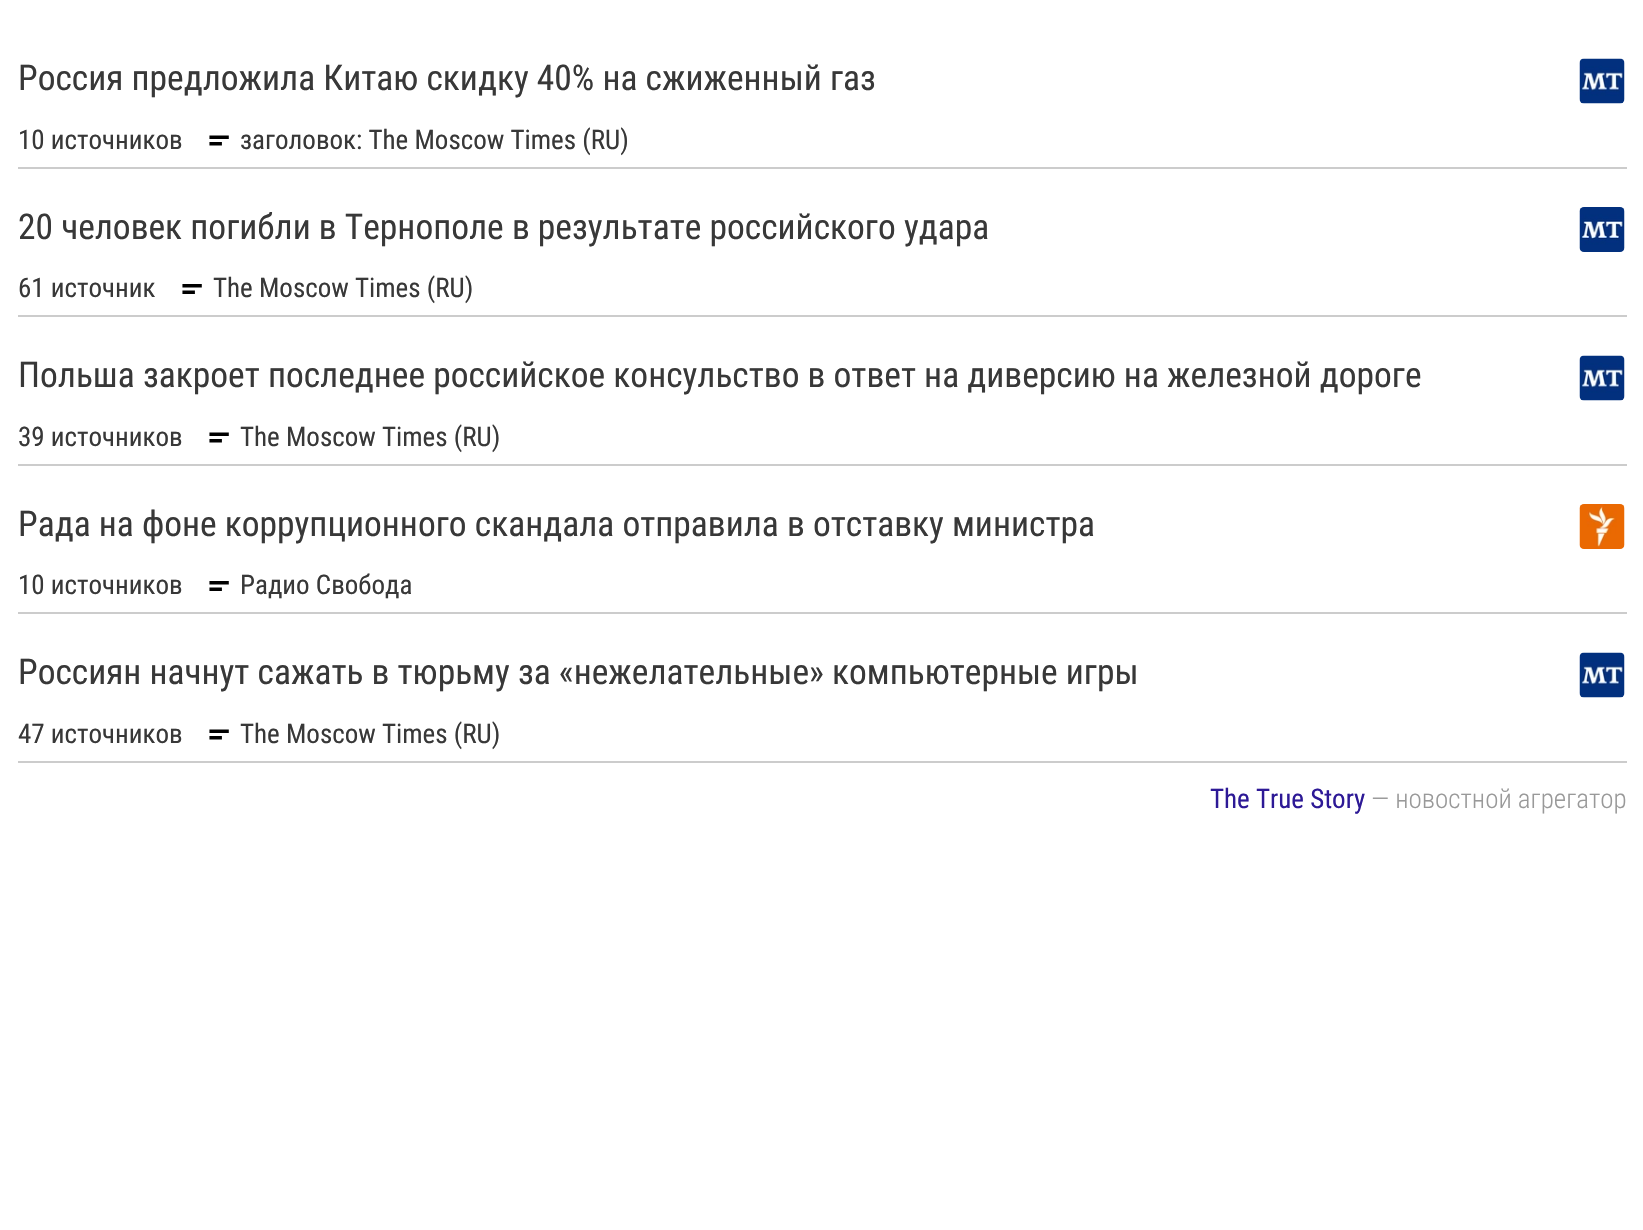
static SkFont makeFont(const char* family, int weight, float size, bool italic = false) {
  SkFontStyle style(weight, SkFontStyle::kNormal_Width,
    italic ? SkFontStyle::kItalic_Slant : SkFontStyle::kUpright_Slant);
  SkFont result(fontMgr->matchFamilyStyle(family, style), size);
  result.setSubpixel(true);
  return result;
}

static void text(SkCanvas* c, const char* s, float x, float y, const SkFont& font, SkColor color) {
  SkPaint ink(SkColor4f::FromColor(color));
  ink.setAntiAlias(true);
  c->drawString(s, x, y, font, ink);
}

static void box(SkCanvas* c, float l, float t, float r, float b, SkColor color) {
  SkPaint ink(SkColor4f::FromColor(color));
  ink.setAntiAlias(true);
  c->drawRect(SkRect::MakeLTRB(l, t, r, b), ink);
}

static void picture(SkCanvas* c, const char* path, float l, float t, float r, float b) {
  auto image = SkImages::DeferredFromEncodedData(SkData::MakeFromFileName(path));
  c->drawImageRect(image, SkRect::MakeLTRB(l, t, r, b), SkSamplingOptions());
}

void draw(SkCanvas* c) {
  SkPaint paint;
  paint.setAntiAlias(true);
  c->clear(0xffffffff);
  box(c, 18, 761, 1627, 763, 0xffcccccc);
  SkFont face1 = makeFont("Roboto Condensed", 400, 35.45f);
  text(c, "Россия предложила Китаю скидку 40% на сжиженный газ", 18, 90, face1, 0xff383838);
  picture(c, "img_01.png", 1579, 58, 1625, 104);
  SkFont face2 = makeFont("Roboto Condensed", 400, 27);
  text(c, "10 источников", 18, 149, face2, 0xff383838);
  picture(c, "img_02.png", 209, 135, 229, 146);
  text(c, "заголовок: The Moscow Times (RU)", 240, 149, face2, 0xff383838);
  box(c, 18, 167, 1627, 169, 0xffcccccc);
  text(c, "20 человек погибли в Тернополе в результате российского удара", 18, 239, face1, 0xff383838);
  picture(c, "img_03.png", 1579, 207, 1625, 252);
  text(c, "61 источник", 18, 297, face2, 0xff383838);
  picture(c, "img_04.png", 182, 284, 202, 294);
  text(c, "The Moscow Times (RU)", 213, 297, face2, 0xff383838);
  box(c, 18, 315, 1627, 317, 0xffcccccc);
  text(c, "Польша закроет последнее российское консульство в ответ на диверсию на железной дороге", 18, 387, face1, 0xff383838);
  picture(c, "img_01.png", 1579, 355, 1625, 401);
  text(c, "39 источников", 18, 446, face2, 0xff383838);
  picture(c, "img_02.png", 209, 432, 229, 443);
  text(c, "The Moscow Times (RU)", 240, 446, face2, 0xff383838);
  box(c, 18, 464, 1627, 466, 0xffcccccc);
  text(c, "Рада на фоне коррупционного скандала отправила в отставку министра", 18, 536, face1, 0xff383838);
  picture(c, "img_05.png", 1579, 504, 1625, 549);
  text(c, "10 источников", 18, 594, face2, 0xff383838);
  picture(c, "img_04.png", 209, 581, 229, 591);
  text(c, "Радио Свобода", 240, 594, face2, 0xff383838);
  box(c, 18, 612, 1627, 614, 0xffcccccc);
  text(c, "Россиян начнут сажать в тюрьму за «нежелательные» компьютерные игры", 18, 684, face1, 0xff383838);
  picture(c, "img_01.png", 1579, 652, 1625, 698);
  text(c, "47 источников", 18, 743, face2, 0xff383838);
  picture(c, "img_02.png", 209, 729, 229, 740);
  text(c, "The Moscow Times (RU)", 240, 743, face2, 0xff383838);
  text(c, "The True Story", 1210, 808, face2, 0xff2d1996);
  SkFont face3 = makeFont("Roboto Condensed", 300, 27);
  text(c, "— новостной агрегатор", 1371, 808, face3, 0xff999999);
}
